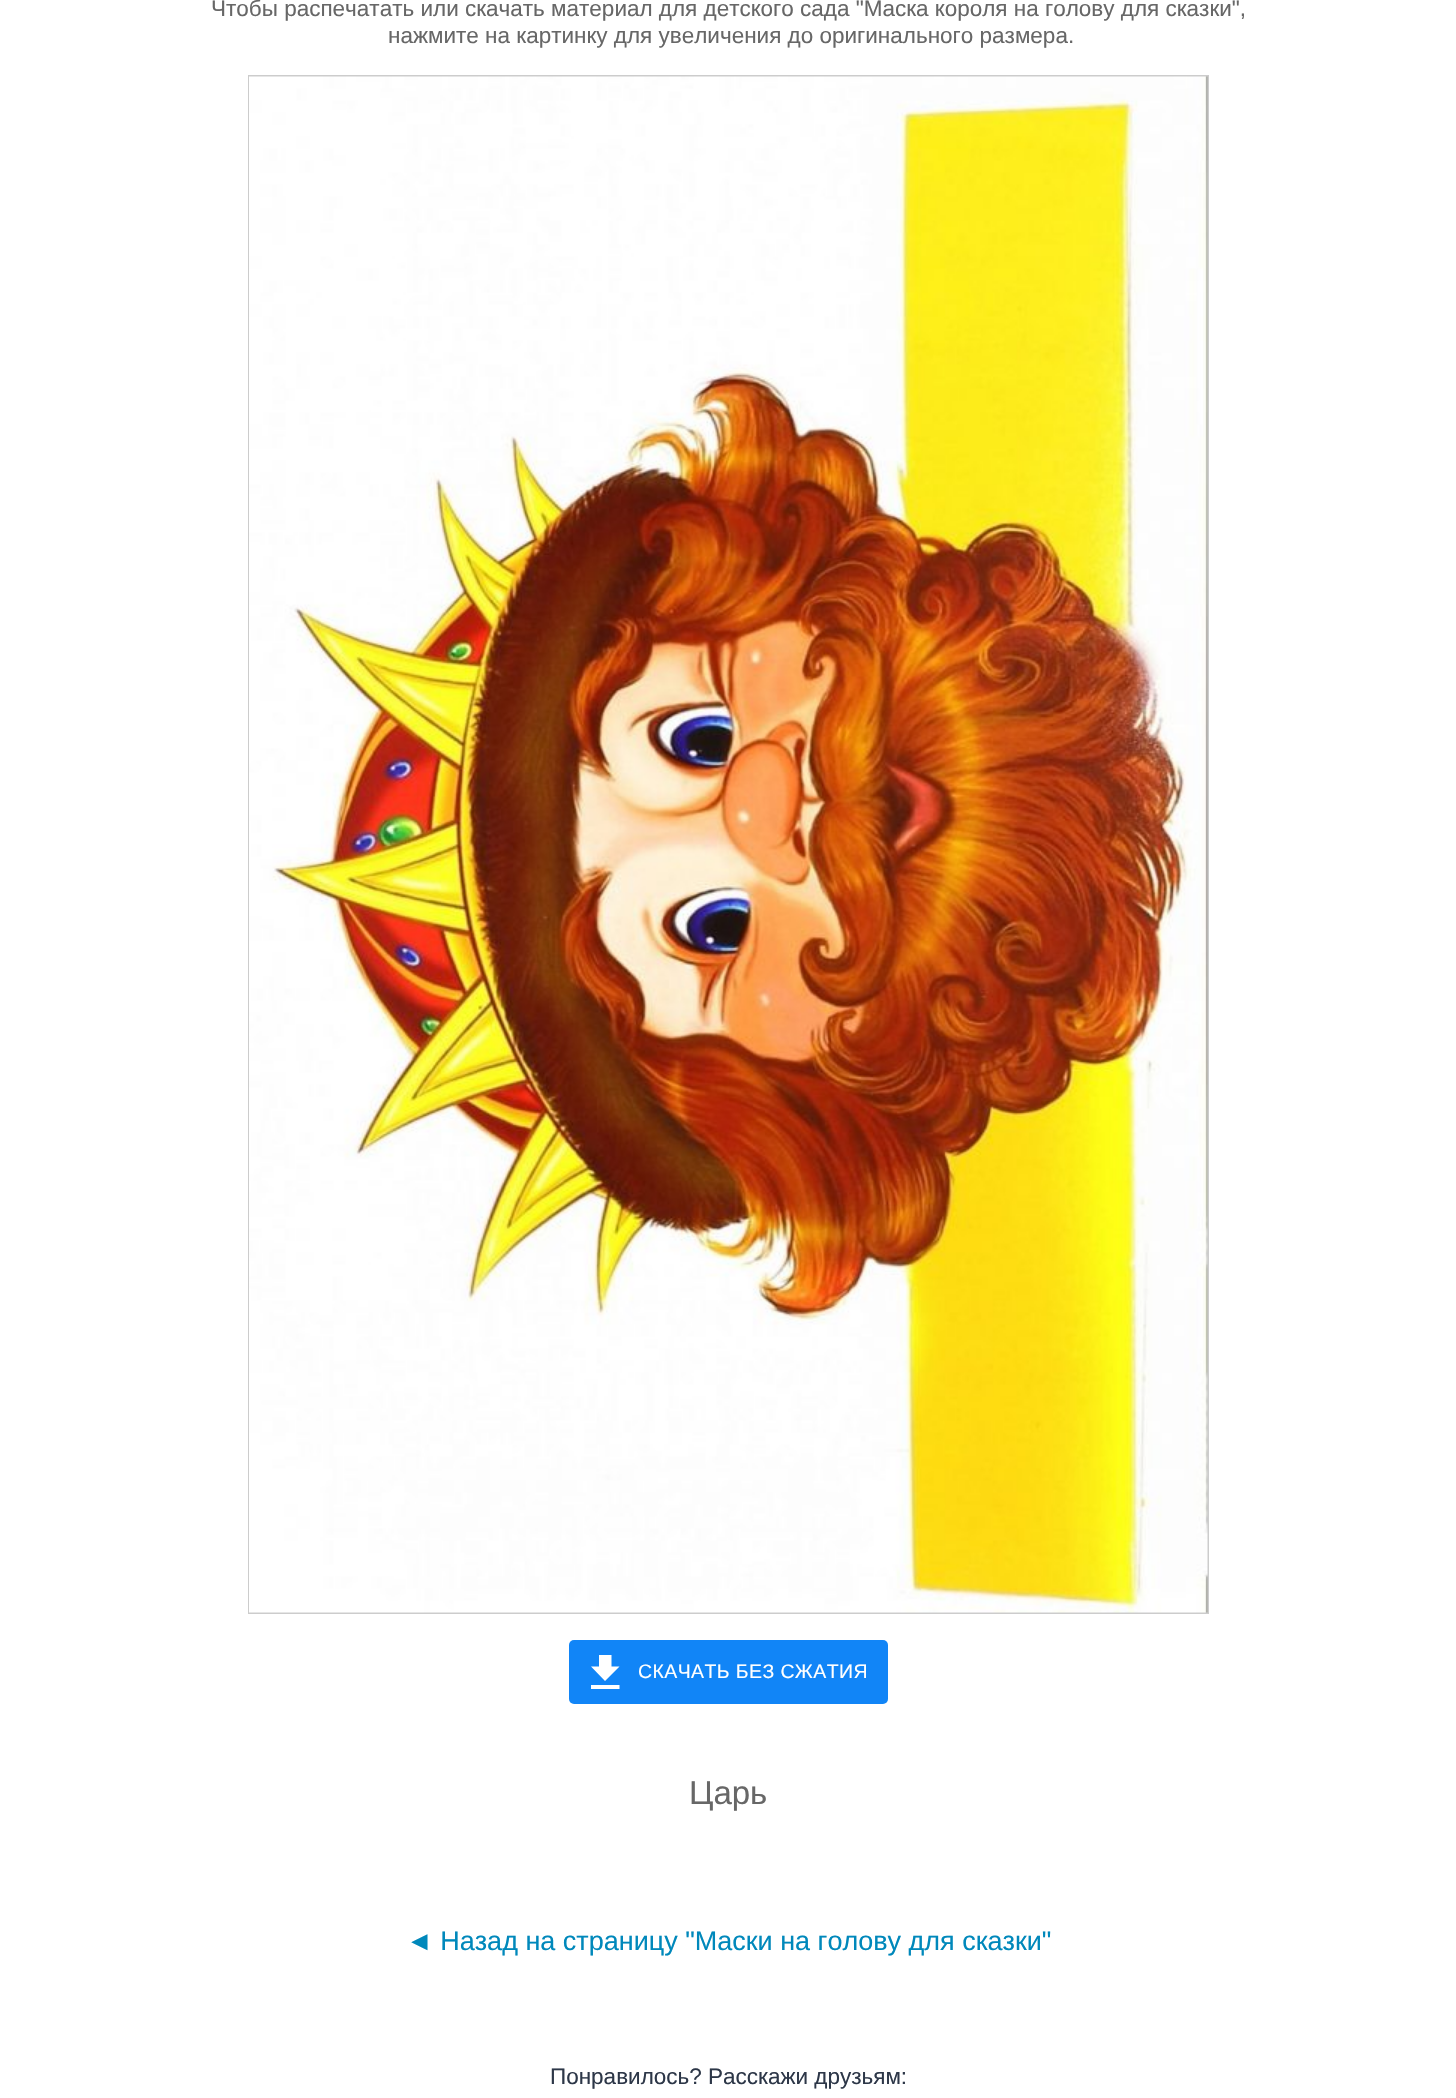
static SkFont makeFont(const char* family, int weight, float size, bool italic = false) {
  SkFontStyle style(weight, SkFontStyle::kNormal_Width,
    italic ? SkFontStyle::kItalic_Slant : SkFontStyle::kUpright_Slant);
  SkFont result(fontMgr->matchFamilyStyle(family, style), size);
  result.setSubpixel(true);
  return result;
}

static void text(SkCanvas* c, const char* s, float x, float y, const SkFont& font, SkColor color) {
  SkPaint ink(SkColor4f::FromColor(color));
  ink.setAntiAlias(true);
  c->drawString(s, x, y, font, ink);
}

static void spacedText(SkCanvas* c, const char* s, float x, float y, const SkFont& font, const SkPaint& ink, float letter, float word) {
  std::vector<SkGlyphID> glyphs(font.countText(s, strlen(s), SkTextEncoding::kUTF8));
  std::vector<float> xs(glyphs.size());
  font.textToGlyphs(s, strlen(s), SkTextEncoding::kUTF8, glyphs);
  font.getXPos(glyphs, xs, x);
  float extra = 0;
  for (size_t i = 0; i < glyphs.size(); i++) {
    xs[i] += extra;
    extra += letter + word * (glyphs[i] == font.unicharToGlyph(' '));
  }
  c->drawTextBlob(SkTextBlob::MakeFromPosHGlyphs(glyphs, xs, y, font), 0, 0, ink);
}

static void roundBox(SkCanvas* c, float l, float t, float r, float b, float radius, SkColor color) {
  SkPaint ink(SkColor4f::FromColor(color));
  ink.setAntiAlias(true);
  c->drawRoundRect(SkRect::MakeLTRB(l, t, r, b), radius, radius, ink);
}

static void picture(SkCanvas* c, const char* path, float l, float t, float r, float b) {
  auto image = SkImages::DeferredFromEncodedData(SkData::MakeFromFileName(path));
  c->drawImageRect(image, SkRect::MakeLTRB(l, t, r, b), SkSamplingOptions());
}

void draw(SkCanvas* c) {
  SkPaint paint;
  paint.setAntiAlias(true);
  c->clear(0xffffffff);
  SkFont face1 = makeFont("Liberation Sans", 400, 22.5f);
  text(c, "Чтобы распечатать или скачать материал для детского сада \"Маска короля на голову для сказки\",", 211, 16, face1, 0xff676767);
  text(c, "нажмите на картинку для увеличения до оригинального размера.", 388, 43, face1, 0xff676767);
  paint.setStyle(SkPaint::kStroke_Style);
  paint.setStrokeWidth(2);
  paint.setColor(0xffcccccc);
  c->drawRect(SkRect::MakeLTRB(249, 76, 1208, 1613), paint);
  picture(c, "img_01.png", 249, 76, 1208, 1613);
  roundBox(c, 569, 1640, 888, 1704, 5, 0xff1185f7);
  c->save();
  c->clipRect(SkRect::MakeLTRB(591, 1655, 620, 1689));
  paint.setStyle(SkPaint::kFill_Style);
  paint.setColor(0xffffffff);
  c->drawPath(SkPathBuilder().moveTo(591, 1689).lineTo(619.5f, 1689).lineTo(619.5f, 1685).lineTo(591, 1685).close().moveTo(619.5f, 1666.5f).lineTo(611.5f, 1666.5f).lineTo(611.5f, 1654.5f).lineTo(599, 1654.5f).lineTo(599, 1666.5f).lineTo(591, 1666.5f).lineTo(605, 1681).close().detach(), paint);
  c->restore();
  SkFont face2 = makeFont("Liberation Sans", 400, 19.5f);
  spacedText(c, "СКАЧАТЬ БЕЗ СЖАТИЯ", 638, 1678, face2, paint, 0.4f, 0);
  SkFont face3 = makeFont("Liberation Sans", 400, 33);
  text(c, "Царь", 689, 1804, face3, 0xff676767);
  SkFont face4 = makeFont("Liberation Sans", 400, 27);
  text(c, "◄ Назад на страницу \"Маски на голову для сказки\"", 406, 1950, face4, 0xff0088bb);
  text(c, "Понравилось? Расскажи друзьям:", 550, 2084, face1, 0xff2d3748);
}
